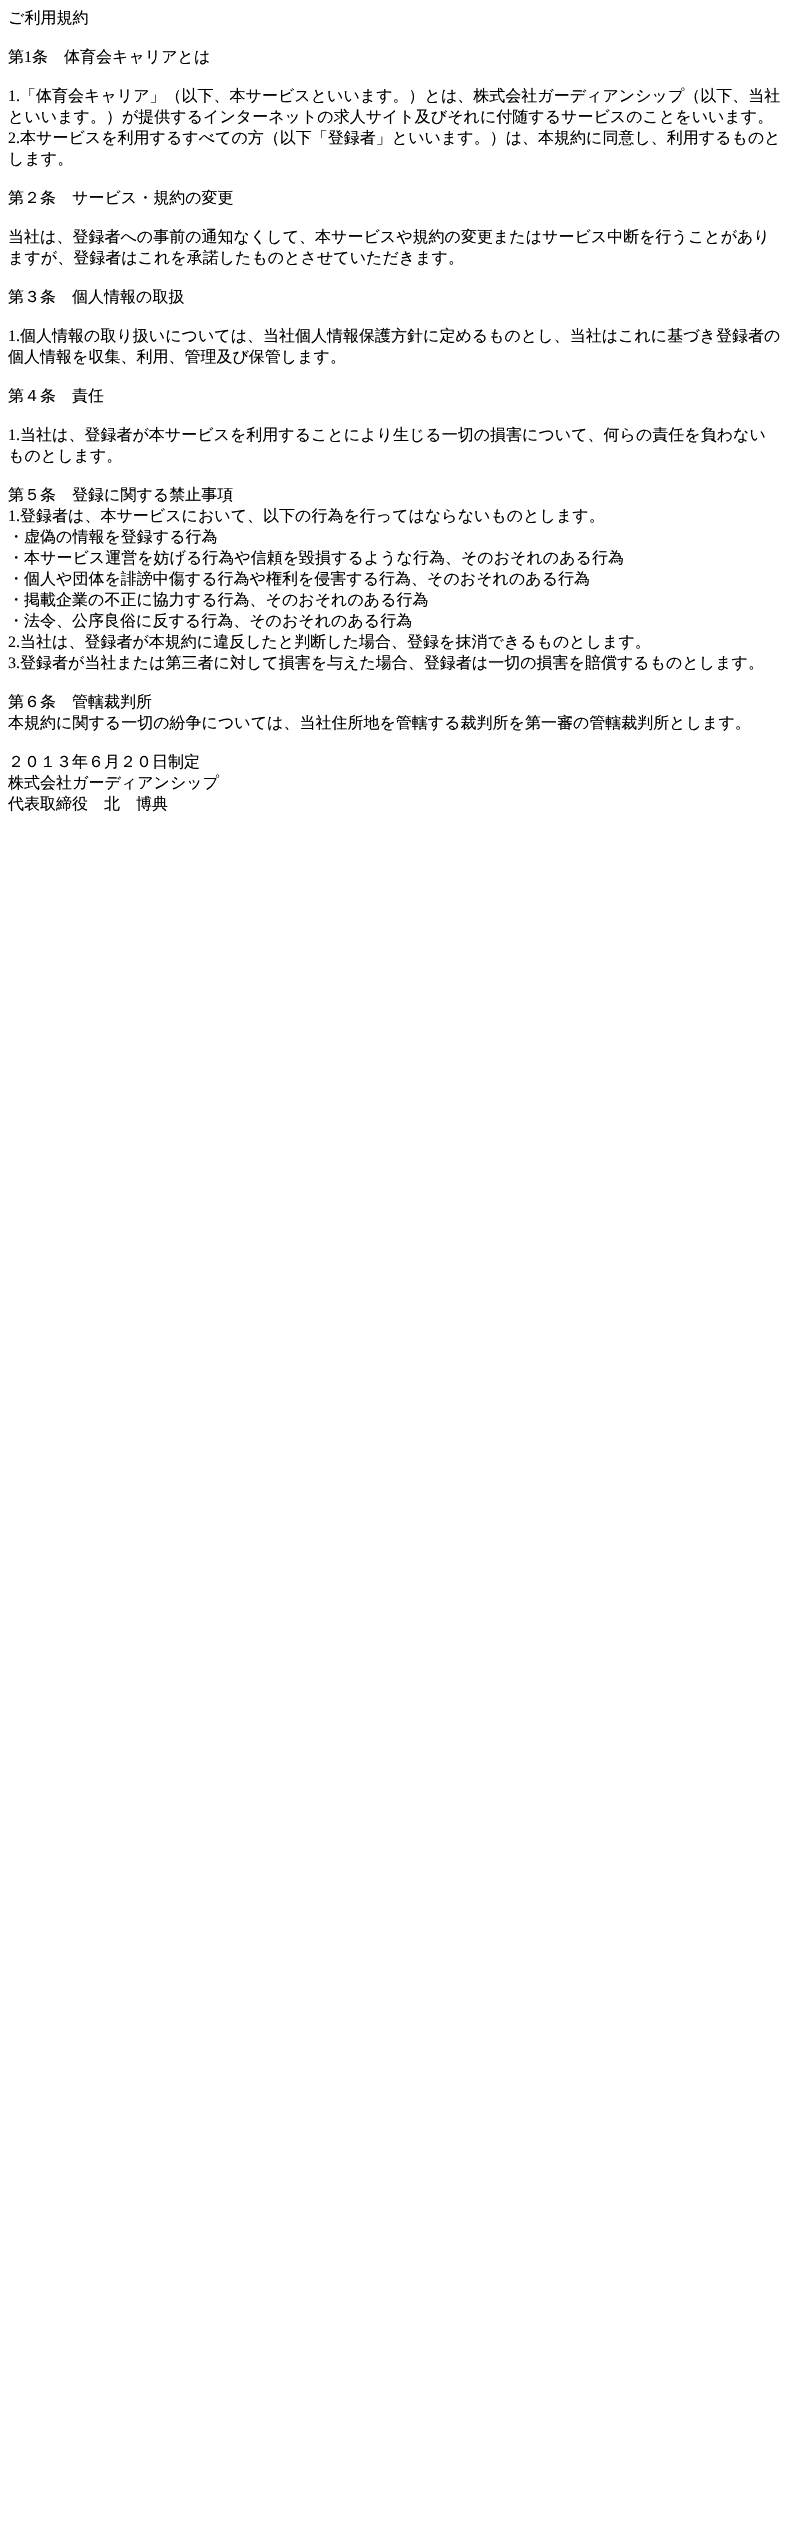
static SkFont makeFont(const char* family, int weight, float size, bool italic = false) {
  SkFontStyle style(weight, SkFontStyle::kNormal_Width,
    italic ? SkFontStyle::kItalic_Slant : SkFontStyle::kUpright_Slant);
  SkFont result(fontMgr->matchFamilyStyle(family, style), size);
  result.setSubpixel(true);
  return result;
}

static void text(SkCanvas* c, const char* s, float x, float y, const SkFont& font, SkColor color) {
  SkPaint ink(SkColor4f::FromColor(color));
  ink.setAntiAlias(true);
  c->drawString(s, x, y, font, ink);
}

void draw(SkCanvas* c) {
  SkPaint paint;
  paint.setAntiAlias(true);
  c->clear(0xffffffff);
  SkFont face1 = makeFont("WenQuanYi Zen Hei", 500, 16);
  text(c, "ご利用規約", 8, 23, face1, 0xff000000);
  text(c, "第", 8, 62, face1, 0xff000000);
  SkFont face2 = makeFont("Liberation Serif", 400, 16);
  text(c, "1", 24, 62, face2, 0xff000000);
  text(c, "条　体育会キャリアとは", 32, 62, face1, 0xff000000);
  text(c, "1.", 8, 101, face2, 0xff000000);
  text(c, "「体育会キャリア」（以下、本サービスといいます。）とは、株式会社ガーディアンシップ（以下、当社", 20, 101, face1, 0xff000000);
  text(c, "といいます。）が提供するインターネットの求人サイト及びそれに付随するサービスのことをいいます。", 8, 122, face1, 0xff000000);
  text(c, "2.", 8, 143, face2, 0xff000000);
  text(c, "本サービスを利用するすべての方（以下「登録者」といいます。）は、本規約に同意し、利用するものと", 20, 143, face1, 0xff000000);
  text(c, "します。", 8, 164, face1, 0xff000000);
  text(c, "第２条　サービス・規約の変更", 8, 203, face1, 0xff000000);
  text(c, "当社は、登録者への事前の通知なくして、本サービスや規約の変更またはサービス中断を行うことがあり", 8, 242, face1, 0xff000000);
  text(c, "ますが、登録者はこれを承諾したものとさせていただきます。", 8, 263, face1, 0xff000000);
  text(c, "第３条　個人情報の取扱", 8, 302, face1, 0xff000000);
  text(c, "1.", 8, 341, face2, 0xff000000);
  text(c, "個人情報の取り扱いについては、当社個人情報保護方針に定めるものとし、当社はこれに基づき登録者の", 20, 341, face1, 0xff000000);
  text(c, "個人情報を収集、利用、管理及び保管します。", 8, 362, face1, 0xff000000);
  text(c, "第４条　責任", 8, 401, face1, 0xff000000);
  text(c, "1.", 8, 440, face2, 0xff000000);
  text(c, "当社は、登録者が本サービスを利用することにより生じる一切の損害について、何らの責任を負わない", 20, 440, face1, 0xff000000);
  text(c, "ものとします。", 8, 461, face1, 0xff000000);
  text(c, "第５条　登録に関する禁止事項", 8, 500, face1, 0xff000000);
  text(c, "1.", 8, 521, face2, 0xff000000);
  text(c, "登録者は、本サービスにおいて、以下の行為を行ってはならないものとします。", 20, 521, face1, 0xff000000);
  text(c, "・虚偽の情報を登録する行為", 8, 542, face1, 0xff000000);
  text(c, "・本サービス運営を妨げる行為や信頼を毀損するような行為、そのおそれのある行為", 8, 563, face1, 0xff000000);
  text(c, "・個人や団体を誹謗中傷する行為や権利を侵害する行為、そのおそれのある行為", 8, 584, face1, 0xff000000);
  text(c, "・掲載企業の不正に協力する行為、そのおそれのある行為", 8, 605, face1, 0xff000000);
  text(c, "・法令、公序良俗に反する行為、そのおそれのある行為", 8, 626, face1, 0xff000000);
  text(c, "2.", 8, 647, face2, 0xff000000);
  text(c, "当社は、登録者が本規約に違反したと判断した場合、登録を抹消できるものとします。", 20, 647, face1, 0xff000000);
  text(c, "3.", 8, 668, face2, 0xff000000);
  text(c, "登録者が当社または第三者に対して損害を与えた場合、登録者は一切の損害を賠償するものとします。", 20, 668, face1, 0xff000000);
  text(c, "第６条　管轄裁判所", 8, 707, face1, 0xff000000);
  text(c, "本規約に関する一切の紛争については、当社住所地を管轄する裁判所を第一審の管轄裁判所とします。", 8, 728, face1, 0xff000000);
  text(c, "２０１３年６月２０日制定", 8, 767, face1, 0xff000000);
  text(c, "株式会社ガーディアンシップ", 8, 788, face1, 0xff000000);
  text(c, "代表取締役　北　博典", 8, 809, face1, 0xff000000);
}
